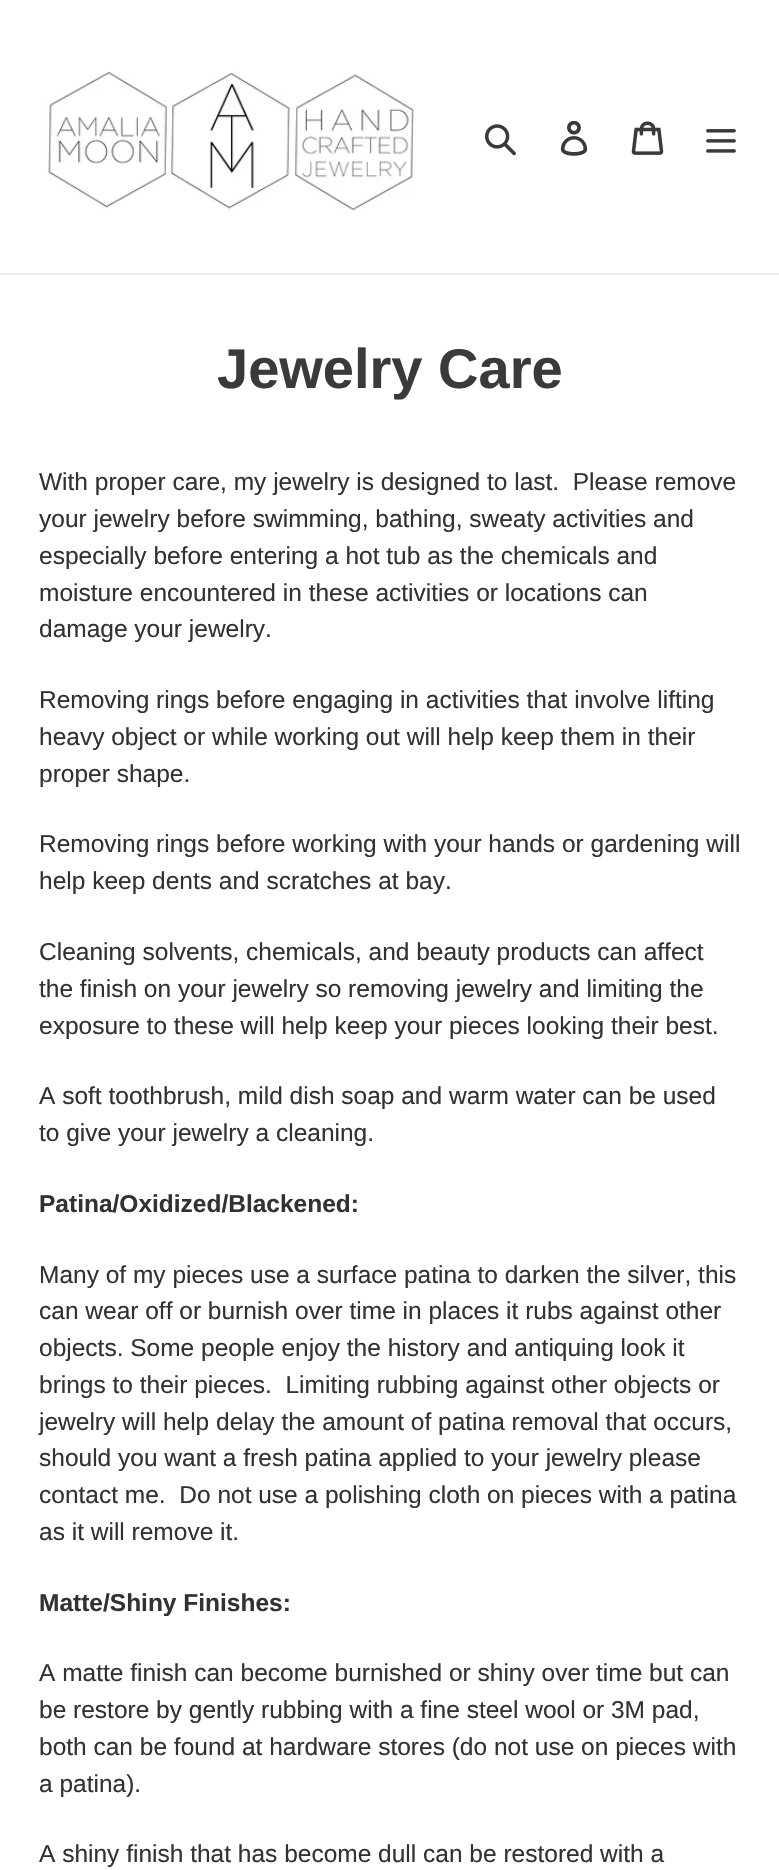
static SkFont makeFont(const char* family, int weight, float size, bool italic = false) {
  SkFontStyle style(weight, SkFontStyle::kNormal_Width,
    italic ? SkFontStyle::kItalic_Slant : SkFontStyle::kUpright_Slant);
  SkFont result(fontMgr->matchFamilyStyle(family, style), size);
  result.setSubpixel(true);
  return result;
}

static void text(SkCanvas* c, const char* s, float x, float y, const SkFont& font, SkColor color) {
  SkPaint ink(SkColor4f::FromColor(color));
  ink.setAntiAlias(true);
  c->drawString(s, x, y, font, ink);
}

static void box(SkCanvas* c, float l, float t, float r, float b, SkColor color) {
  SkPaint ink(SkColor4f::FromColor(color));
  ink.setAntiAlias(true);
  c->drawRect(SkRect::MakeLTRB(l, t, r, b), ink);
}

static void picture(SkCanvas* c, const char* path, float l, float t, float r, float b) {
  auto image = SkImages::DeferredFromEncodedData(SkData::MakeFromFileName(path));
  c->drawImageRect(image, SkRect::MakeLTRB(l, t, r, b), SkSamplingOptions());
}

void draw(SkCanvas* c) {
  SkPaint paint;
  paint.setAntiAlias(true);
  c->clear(0xffffffff);
  box(c, 0, 273, 779, 275, 0xffebebeb);
  picture(c, "img_01.png", 47, 71, 415, 211);
  picture(c, "img_02.png", 485, 124, 516, 156);
  picture(c, "img_03.png", 560, 121, 588, 156);
  picture(c, "img_04.png", 631, 121, 664, 155);
  picture(c, "img_05.png", 706, 129, 736, 153);
  SkFont face1 = makeFont("Liberation Sans", 700, 56);
  text(c, "Jewelry Care", 217, 388, face1, 0xff3a3a3a);
  SkFont face2 = makeFont("Liberation Sans", 400, 24.5f);
  text(c, "With proper care, my jewelry is designed to last.  Please remove", 39, 490, face2, 0xff333232);
  text(c, "your jewelry before swimming, bathing, sweaty activities and", 39, 527, face2, 0xff333232);
  text(c, "especially before entering a hot tub as the chemicals and", 39, 564, face2, 0xff333232);
  text(c, "moisture encountered in these activities or locations can", 39, 601, face2, 0xff333232);
  text(c, "damage your jewelry.", 39, 637, face2, 0xff333232);
  text(c, "Removing rings before engaging in activities that involve lifting", 39, 708, face2, 0xff333232);
  text(c, "heavy object or while working out will help keep them in their", 39, 745, face2, 0xff333232);
  text(c, "proper shape.", 39, 782, face2, 0xff333232);
  text(c, "Removing rings before working with your hands or gardening will", 39, 852, face2, 0xff333232);
  text(c, "help keep dents and scratches at bay.", 39, 889, face2, 0xff333232);
  text(c, "Cleaning solvents, chemicals, and beauty products can affect", 39, 960, face2, 0xff333232);
  text(c, "the finish on your jewelry so removing jewelry and limiting the", 39, 997, face2, 0xff333232);
  text(c, "exposure to these will help keep your pieces looking their best.", 39, 1034, face2, 0xff333232);
  text(c, "A soft toothbrush, mild dish soap and warm water can be used", 39, 1104, face2, 0xff333232);
  text(c, "to give your jewelry a cleaning.", 39, 1141, face2, 0xff333232);
  SkFont face3 = makeFont("Liberation Sans", 700, 24.5f);
  text(c, "Patina/Oxidized/Blackened:", 39, 1212, face3, 0xff333232);
  text(c, "Many of my pieces use a surface patina to darken the silver, this", 39, 1283, face2, 0xff333232);
  text(c, "can wear off or burnish over time in places it rubs against other", 39, 1319, face2, 0xff333232);
  text(c, "objects. Some people enjoy the history and antiquing look it", 39, 1356, face2, 0xff333232);
  text(c, "brings to their pieces.  Limiting rubbing against other objects or", 39, 1393, face2, 0xff333232);
  text(c, "jewelry will help delay the amount of patina removal that occurs,", 39, 1430, face2, 0xff333232);
  text(c, "should you want a fresh patina applied to your jewelry please", 39, 1466, face2, 0xff333232);
  text(c, "contact me.  Do not use a polishing cloth on pieces with a patina", 39, 1503, face2, 0xff333232);
  text(c, "as it will remove it.", 39, 1540, face2, 0xff333232);
  text(c, "Matte/Shiny Finishes:", 39, 1611, face3, 0xff333232);
  text(c, "A matte finish can become burnished or shiny over time but can", 39, 1681, face2, 0xff333232);
  text(c, "be restore by gently rubbing with a fine steel wool or 3M pad,", 39, 1718, face2, 0xff333232);
  text(c, "both can be found at hardware stores (do not use on pieces with", 39, 1755, face2, 0xff333232);
  text(c, "a patina).", 39, 1792, face2, 0xff333232);
  text(c, "A shiny finish that has become dull can be restored with a", 39, 1862, face2, 0xff333232);
}
